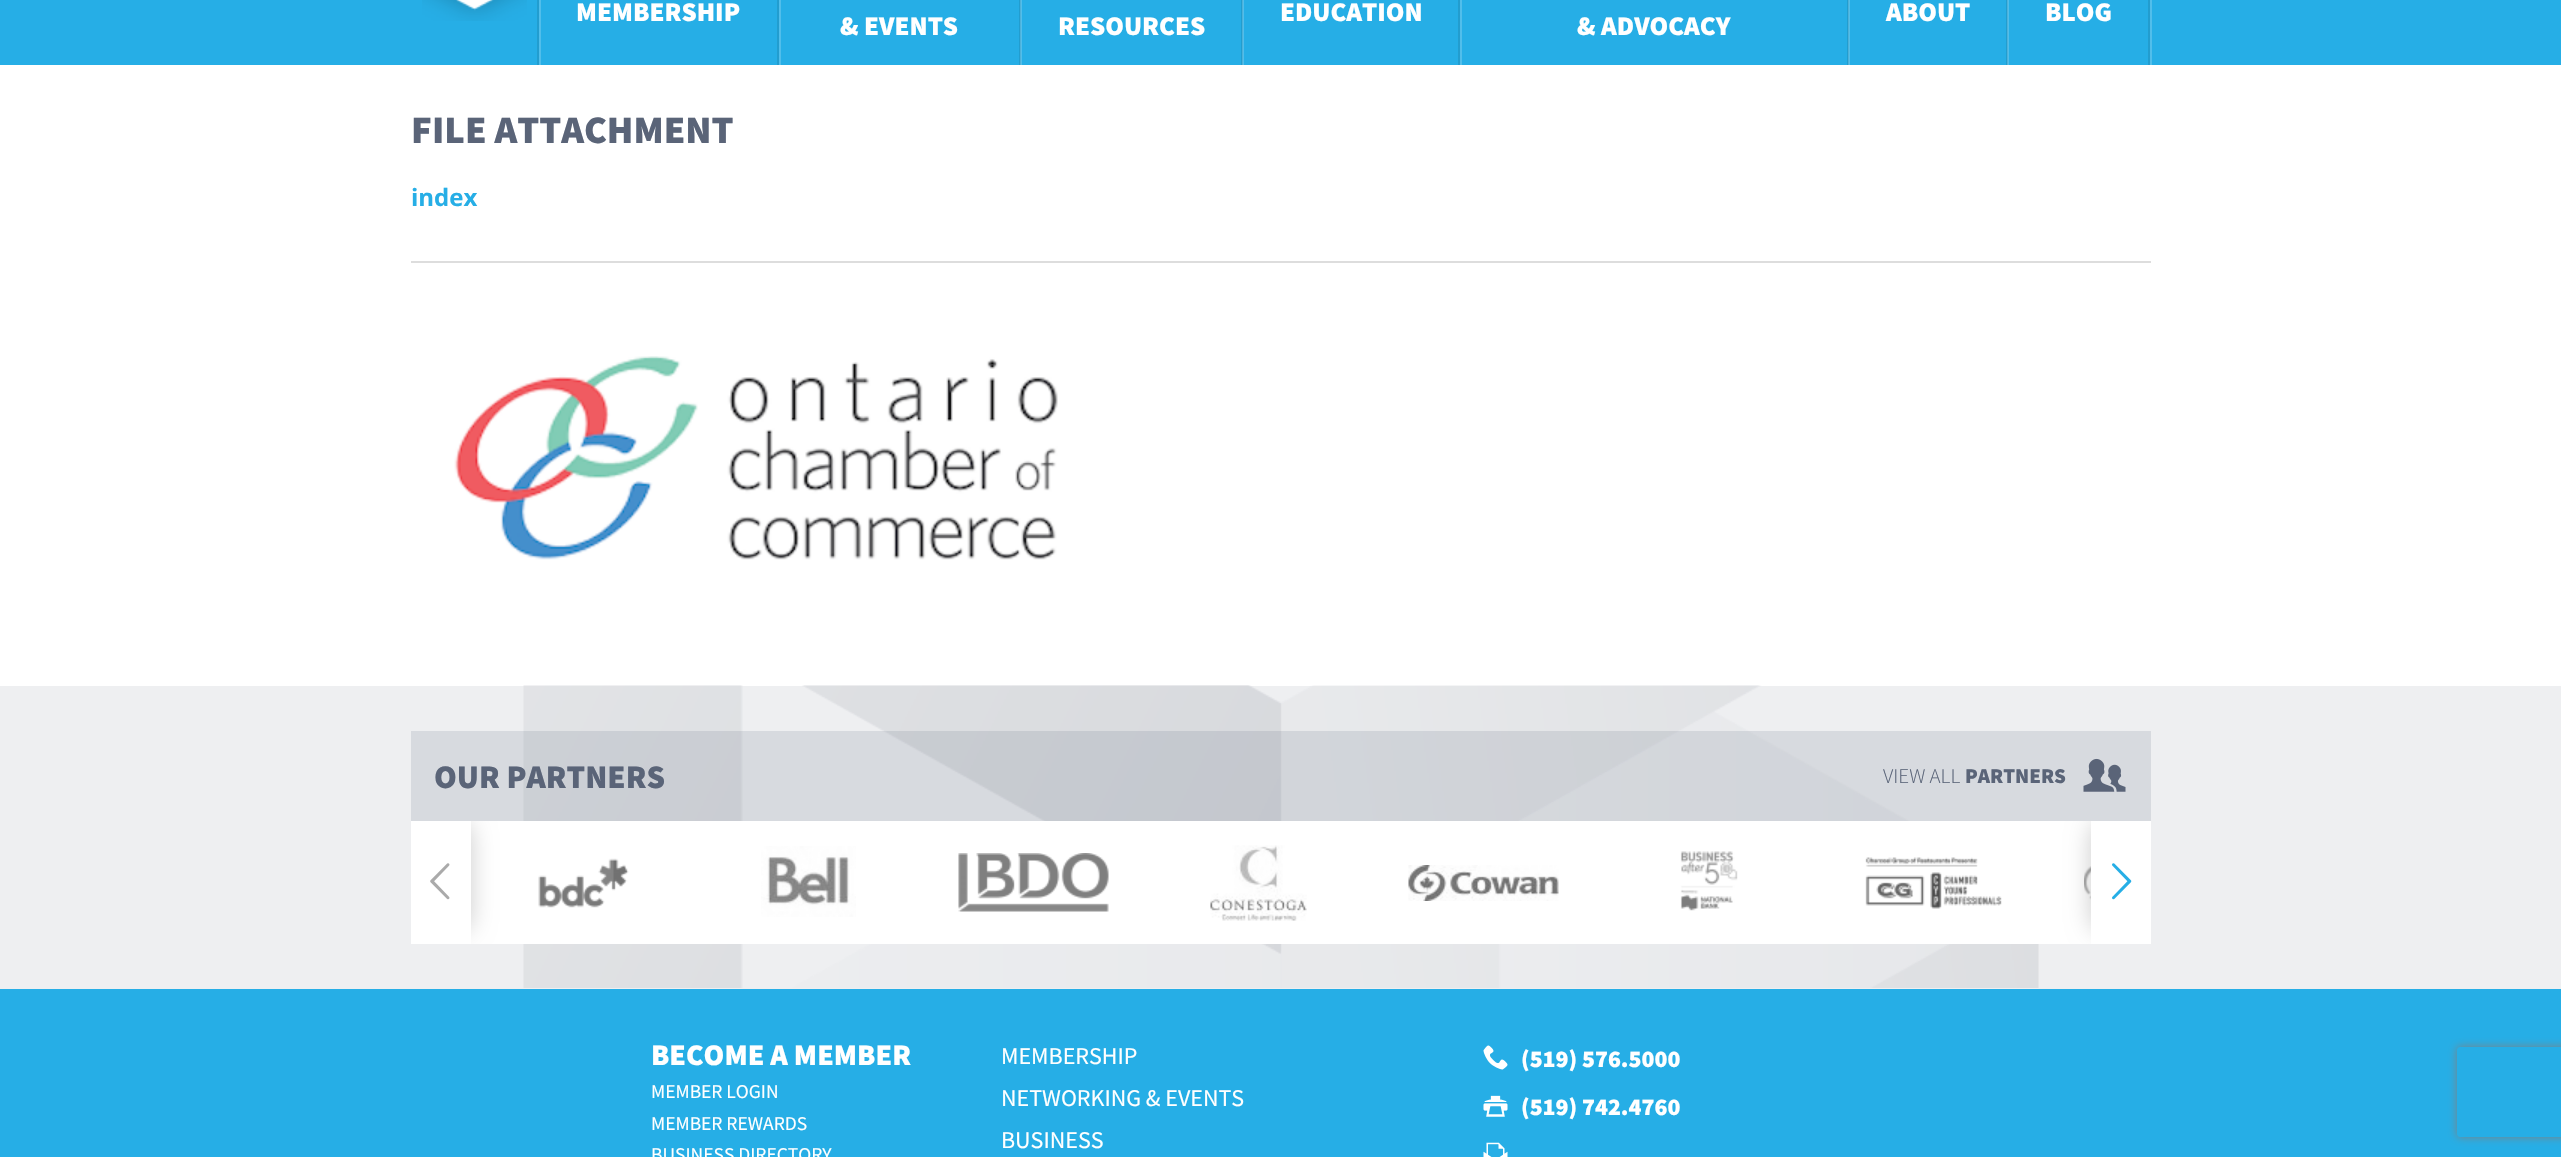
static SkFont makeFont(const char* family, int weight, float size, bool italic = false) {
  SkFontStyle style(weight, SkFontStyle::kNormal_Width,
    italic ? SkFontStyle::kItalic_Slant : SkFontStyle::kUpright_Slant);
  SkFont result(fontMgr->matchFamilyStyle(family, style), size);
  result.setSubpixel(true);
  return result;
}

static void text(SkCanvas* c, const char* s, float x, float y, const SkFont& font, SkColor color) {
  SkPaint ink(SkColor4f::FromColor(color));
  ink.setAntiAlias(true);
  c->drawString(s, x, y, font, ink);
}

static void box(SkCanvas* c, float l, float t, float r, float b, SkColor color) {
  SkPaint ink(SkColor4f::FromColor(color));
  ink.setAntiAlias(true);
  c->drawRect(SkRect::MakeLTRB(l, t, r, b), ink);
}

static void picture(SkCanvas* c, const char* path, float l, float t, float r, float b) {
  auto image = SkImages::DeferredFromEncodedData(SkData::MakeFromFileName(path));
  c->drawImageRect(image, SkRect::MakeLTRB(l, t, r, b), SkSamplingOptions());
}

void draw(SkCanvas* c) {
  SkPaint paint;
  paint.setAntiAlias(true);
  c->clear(0xffffffff);
  box(c, 0, 0, 2561, 65, 0xff26aee6);
  picture(c, "img_01.png", 422, 0, 527, 21);
  box(c, 2008, 0, 2009, 65, 0xff51beeb);
  box(c, 1849, 0, 1850, 65, 0xff51beeb);
  box(c, 1243, 0, 1244, 65, 0xff51beeb);
  box(c, 1021, 0, 1022, 65, 0xff51beeb);
  box(c, 2150, 0, 2152, 65, 0xff51beeb);
  box(c, 537, 0, 539, 65, 0xff229dcf);
  box(c, 777, 0, 779, 65, 0xff229dcf);
  box(c, 539, 0, 541, 65, 0xff51beeb);
  SkFont face1 = makeFont("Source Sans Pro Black", 900, 27);
  text(c, "MEMBERSHIP", 576, 21, face1, 0xffffffff);
  box(c, 1458, 0, 1460, 65, 0xff229dcf);
  text(c, "EDUCATION", 1280, 21, face1, 0xffffffff);
  box(c, 2006, 0, 2007, 65, 0xff229dcf);
  box(c, 2007, 0, 2008, 65, 0xff4eb1d9);
  text(c, "ABOUT", 1886, 21, face1, 0xffffffff);
  box(c, 2148, 0, 2150, 65, 0xff229dcf);
  text(c, "BLOG", 2045, 21, face1, 0xffffffff);
  box(c, 1019, 0, 1020, 65, 0xff229dcf);
  box(c, 1020, 0, 1021, 65, 0xff4eb1d9);
  box(c, 779, 0, 781, 65, 0xff51beeb);
  text(c, "& EVENTS", 840, 35, face1, 0xffffffff);
  box(c, 1241, 0, 1242, 65, 0xff229dcf);
  box(c, 1242, 0, 1243, 65, 0xff4eb1d9);
  text(c, "RESOURCES", 1058, 35, face1, 0xffffffff);
  box(c, 1847, 0, 1848, 65, 0xff229dcf);
  box(c, 1848, 0, 1849, 65, 0xff4eb1d9);
  box(c, 1460, 0, 1462, 65, 0xff51beeb);
  text(c, "& ADVOCACY", 1577, 35, face1, 0xffffffff);
  SkFont face2 = makeFont("Source Sans Pro Black", 900, 39);
  text(c, "FILE ATTACHMENT", 411, 143, face2, 0xff5a6478);
  SkFont face3 = makeFont("Open Sans", 700, 24);
  text(c, "index", 411, 206, face3, 0xff26aee6);
  box(c, 411, 261, 2151, 263, 0xffdddddd);
  picture(c, "img_02.png", 454, 356, 1058, 560);
  box(c, 0, 686, 2561, 989, 0xffeeeff1);
  picture(c, "img_03.png", 523, 685, 2039, 988);
  box(c, 411, 731, 2151, 821, 0x265a6478);
  SkFont face4 = makeFont("Source Sans Pro Black", 900, 33);
  text(c, "OUR PARTNERS", 434, 788, face4, 0xff5a6478);
  SkFont face5 = makeFont("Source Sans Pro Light", 300, 21);
  text(c, "VIEW ALL", 1883, 783, face5, 0xff5a6478);
  SkFont face6 = makeFont("Source Sans Pro Black", 900, 21);
  text(c, "PARTNERS", 1965, 783, face6, 0xff5a6478);
  picture(c, "img_04.png", 2083, 758, 2126, 792);
  box(c, 411, 821, 2151, 944, 0xffffffff);
  picture(c, "img_13.png", 430, 863, 450, 900);
  c->save();
  c->clipRect(SkRect::MakeLTRB(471, 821, 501, 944));
  paint.setColor(0x33000000);
  paint.setMaskFilter(SkMaskFilter::MakeBlur(kNormal_SkBlurStyle, 12));
  c->drawRoundRect(SkRect::MakeLTRB(441, 821, 471, 932), 15, 15, paint);
  paint.setMaskFilter(nullptr);
  c->restore();
  picture(c, "img_05.png", 538, 858, 629, 908);
  picture(c, "img_06.png", 761, 846, 856, 917);
  picture(c, "img_07.png", 958, 853, 1109, 912);
  picture(c, "img_08.png", 1210, 845, 1307, 921);
  picture(c, "img_09.png", 1408, 865, 1559, 901);
  picture(c, "img_10.png", 1680, 851, 1738, 911);
  picture(c, "img_11.png", 1865, 857, 2002, 909);
  picture(c, "img_12.png", 2084, 866, 2091, 900);
  picture(c, "img_14.png", 2112, 863, 2132, 900);
  c->save();
  c->clipRect(SkRect::MakeLTRB(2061, 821, 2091, 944));
  paint.setMaskFilter(SkMaskFilter::MakeBlur(kNormal_SkBlurStyle, 12));
  c->drawRoundRect(SkRect::MakeLTRB(2091, 821, 2121, 932), 15, 15, paint);
  paint.setMaskFilter(nullptr);
  c->restore();
  box(c, 0, 989, 2561, 1157, 0xff26aee6);
  SkFont face7 = makeFont("Source Sans Pro Black", 900, 30);
  text(c, "BECOME A MEMBER", 651, 1065, face7, 0xffffffff);
  SkFont face8 = makeFont("Source Sans Pro", 400, 19.5f);
  text(c, "MEMBER LOGIN", 651, 1098, face8, 0xffffffff);
  text(c, "MEMBER REWARDS", 651, 1130, face8, 0xffffffff);
  text(c, "BUSINESS DIRECTORY", 651, 1161, face8, 0xffffffff);
  SkFont face9 = makeFont("Source Sans Pro", 400, 24);
  text(c, "MEMBERSHIP", 1001, 1064, face9, 0xffffffff);
  text(c, "NETWORKING & EVENTS", 1001, 1106, face9, 0xffffffff);
  text(c, "BUSINESS", 1001, 1148, face9, 0xffffffff);
  picture(c, "img_15.png", 1483, 1045, 1508, 1070);
  SkFont face10 = makeFont("Source Sans Pro Black", 900, 24);
  text(c, "(519) 576.5000", 1521, 1067, face10, 0xffffffff);
  picture(c, "img_16.png", 1483, 1095, 1508, 1117);
  text(c, "(519) 742.4760", 1521, 1115, face10, 0xffffffff);
  picture(c, "img_17.png", 1483, 1142, 1508, 1157);
  c->save();
  c->clipPath(SkPathBuilder(SkPathFillType::kEvenOdd).moveTo(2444, 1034).lineTo(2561, 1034).lineTo(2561, 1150).lineTo(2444, 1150).close().moveTo(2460, 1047).lineTo(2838, 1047).cubicTo(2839.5f, 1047, 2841, 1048.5f, 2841, 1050).lineTo(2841, 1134).cubicTo(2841, 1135.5f, 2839.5f, 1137, 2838, 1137).lineTo(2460, 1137).cubicTo(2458.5f, 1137, 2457, 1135.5f, 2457, 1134).lineTo(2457, 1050).cubicTo(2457, 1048.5f, 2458.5f, 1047, 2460, 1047).close().detach(), true);
  paint.setColor(0xff808080);
  paint.setMaskFilter(SkMaskFilter::MakeBlur(kNormal_SkBlurStyle, 4));
  c->drawRoundRect(SkRect::MakeLTRB(2457, 1047, 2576, 1137), 3, 3, paint);
  paint.setMaskFilter(nullptr);
  c->restore();
}
